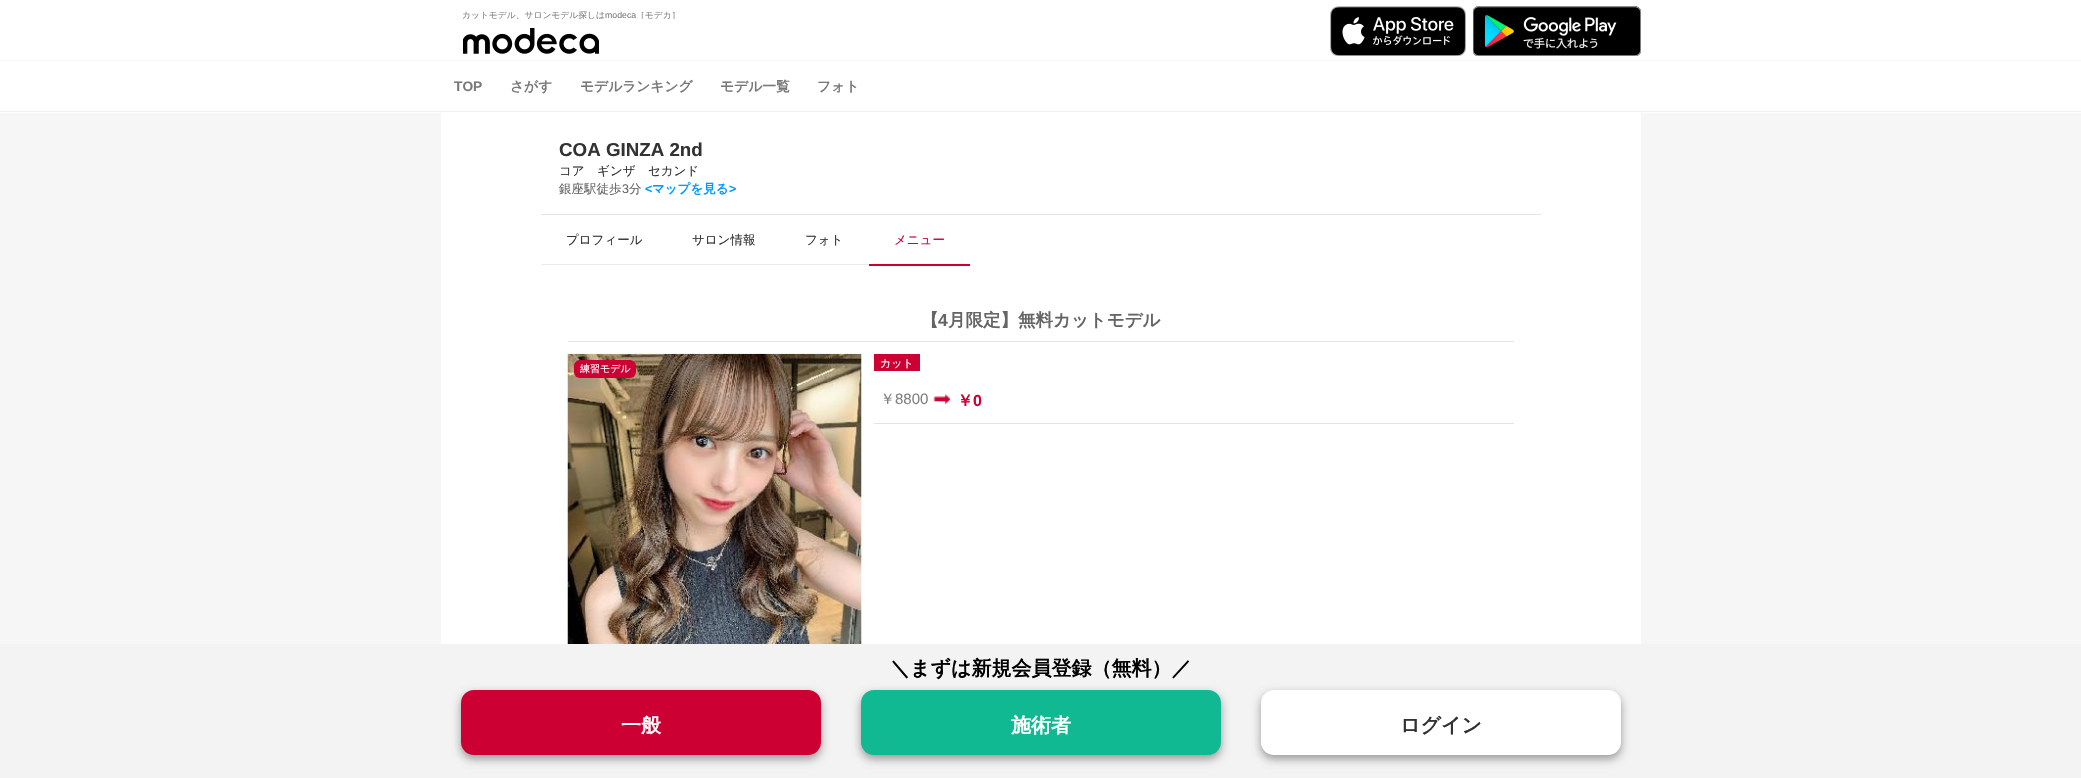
static SkFont makeFont(const char* family, int weight, float size, bool italic = false) {
  SkFontStyle style(weight, SkFontStyle::kNormal_Width,
    italic ? SkFontStyle::kItalic_Slant : SkFontStyle::kUpright_Slant);
  SkFont result(fontMgr->matchFamilyStyle(family, style), size);
  result.setSubpixel(true);
  return result;
}

static void text(SkCanvas* c, const char* s, float x, float y, const SkFont& font, SkColor color) {
  SkPaint ink(SkColor4f::FromColor(color));
  ink.setAntiAlias(true);
  c->drawString(s, x, y, font, ink);
}

static void box(SkCanvas* c, float l, float t, float r, float b, SkColor color) {
  SkPaint ink(SkColor4f::FromColor(color));
  ink.setAntiAlias(true);
  c->drawRect(SkRect::MakeLTRB(l, t, r, b), ink);
}

static void roundBox(SkCanvas* c, float l, float t, float r, float b, float radius, SkColor color) {
  SkPaint ink(SkColor4f::FromColor(color));
  ink.setAntiAlias(true);
  c->drawRoundRect(SkRect::MakeLTRB(l, t, r, b), radius, radius, ink);
}

static void picture(SkCanvas* c, const char* path, float l, float t, float r, float b) {
  auto image = SkImages::DeferredFromEncodedData(SkData::MakeFromFileName(path));
  c->drawImageRect(image, SkRect::MakeLTRB(l, t, r, b), SkSamplingOptions());
}

void draw(SkCanvas* c) {
  SkPaint paint;
  paint.setAntiAlias(true);
  c->clear(0xfff6f6f6);
  box(c, 441, 113, 1641, 644, 0xffffffff);
  box(c, 0, 0, 2081, 60, 0xffffffff);
  c->save();
  c->clipRect(SkRect::MakeLTRB(463, 10, 1538, 19));
  SkFont face1 = makeFont("WenQuanYi Zen Hei", 500, 8.75f);
  text(c, "カットモデル、サロンモデル探しは", 462, 18, face1, 0xff808080);
  c->restore();
  SkFont face2 = makeFont("Liberation Sans", 400, 8.75f);
  text(c, "modeca", 605, 18, face2, 0xff808080);
  c->save();
  c->clipRect(SkRect::MakeLTRB(463, 10, 1538, 19));
  text(c, "［モデカ］", 636, 18, face1, 0xff808080);
  c->restore();
  picture(c, "img_01.png", 1330, 6, 1466, 56);
  picture(c, "img_02.png", 1473, 6, 1641, 56);
  picture(c, "img_03.png", 463, 28, 599, 54);
  box(c, 0, 61, 2081, 113, 0xffffffff);
  box(c, 0, 111, 2081, 112, 0xffefefef);
  SkFont face3 = makeFont("Liberation Sans", 700, 13.75f);
  text(c, "TOP", 454, 91, face3, 0xff787878);
  SkFont face4 = makeFont("WenQuanYi Zen Hei", 700, 13.75f);
  text(c, "さがす", 510, 91, face4, 0xff787878);
  text(c, "モデルランキング", 580, 91, face4, 0xff787878);
  text(c, "モデル一覧", 720, 91, face4, 0xff787878);
  text(c, "フォト", 817, 91, face4, 0xff787878);
  SkFont face5 = makeFont("Liberation Sans", 700, 18.75f);
  text(c, "COA GINZA 2nd", 559, 156, face5, 0xff323232);
  SkFont face6 = makeFont("WenQuanYi Zen Hei", 500, 12.5f);
  text(c, "コア　ギンザ　セカンド", 559, 175, face6, 0xff323232);
  text(c, "銀座駅徒歩", 559, 193, face6, 0xff656565);
  SkFont face7 = makeFont("Liberation Sans", 400, 12.5f);
  text(c, "3", 622, 193, face7, 0xff656565);
  text(c, "分", 629, 193, face6, 0xff656565);
  SkFont face8 = makeFont("Liberation Sans", 700, 12.5f);
  text(c, "<", 645, 193, face8, 0xff0099ff);
  SkFont face9 = makeFont("WenQuanYi Zen Hei", 700, 12.5f);
  text(c, "マップを見る", 652, 193, face9, 0xff0099ff);
  text(c, ">", 729, 193, face8, 0xff0099ff);
  box(c, 541, 214, 1541, 215, 0xffe4e4e4);
  box(c, 541, 264, 869, 265, 0xffebebeb);
  text(c, "プロフィール", 566, 244, face6, 0xff323232);
  text(c, "サロン情報", 692, 244, face6, 0xff323232);
  text(c, "フォト", 805, 244, face6, 0xff323232);
  box(c, 869, 264, 970, 266, 0xffcc0033);
  text(c, "メニュー", 894, 244, face6, 0xffcc0033);
  box(c, 568, 341, 1514, 342, 0xffe4e4e4);
  SkFont face10 = makeFont("WenQuanYi Zen Hei", 700, 17.5f);
  text(c, "【", 921, 326, face10, 0xff656565);
  SkFont face11 = makeFont("Liberation Sans", 700, 17.5f);
  text(c, "4", 938, 326, face11, 0xff656565);
  text(c, "月限定】無料カットモデル", 948, 326, face10, 0xff656565);
  picture(c, "img_04.png", 567, 353, 862, 644);
  roundBox(c, 574, 360, 636, 378, 6, 0xffcc0033);
  SkFont face12 = makeFont("WenQuanYi Zen Hei", 500, 10);
  text(c, "練習モデル", 580, 372, face12, 0xffffffff);
  box(c, 874, 354, 920, 371, 0xffcc0033);
  SkFont face13 = makeFont("WenQuanYi Zen Hei", 500, 11);
  text(c, "カット", 880, 367, face13, 0xffffffff);
  SkFont face14 = makeFont("WenQuanYi Zen Hei", 500, 15);
  text(c, "￥", 880, 404, face14, 0xff808080);
  SkFont face15 = makeFont("Liberation Sans", 400, 15);
  text(c, "8800", 895, 404, face15, 0xff808080);
  picture(c, "img_05.png", 933, 393, 950, 405);
  SkFont face16 = makeFont("WenQuanYi Zen Hei", 700, 16);
  text(c, "￥", 957, 406, face16, 0xffcc0033);
  SkFont face17 = makeFont("Liberation Sans", 700, 16);
  text(c, "0", 973, 406, face17, 0xffcc0033);
  box(c, 874, 423, 1514, 424, 0xffe4e4e4);
  box(c, 0, 644, 2081, 778, 0xfff3f3f3);
  SkFont face18 = makeFont("WenQuanYi Zen Hei", 700, 20);
  text(c, "＼まずは新規会員登録（無料）／", 890, 675, face18, 0xff000000);
  paint.setColor(0x3b000000);
  paint.setMaskFilter(SkMaskFilter::MakeBlur(kNormal_SkBlurStyle, 4));
  c->drawRoundRect(SkRect::MakeLTRB(461, 694, 821, 759), 13, 13, paint);
  paint.setMaskFilter(nullptr);
  paint.setColor(0x29000000);
  paint.setMaskFilter(SkMaskFilter::MakeBlur(kNormal_SkBlurStyle, 4));
  c->drawRoundRect(SkRect::MakeLTRB(461, 694, 821, 759), 13, 13, paint);
  paint.setMaskFilter(nullptr);
  roundBox(c, 461, 690, 821, 755, 13, 0xffcc0033);
  text(c, "一般", 621, 732, face18, 0xffffffff);
  paint.setColor(0x3b000000);
  paint.setMaskFilter(SkMaskFilter::MakeBlur(kNormal_SkBlurStyle, 4));
  c->drawRoundRect(SkRect::MakeLTRB(861, 694, 1221, 759), 13, 13, paint);
  paint.setMaskFilter(nullptr);
  paint.setColor(0x29000000);
  paint.setMaskFilter(SkMaskFilter::MakeBlur(kNormal_SkBlurStyle, 4));
  c->drawRoundRect(SkRect::MakeLTRB(861, 694, 1221, 759), 13, 13, paint);
  paint.setMaskFilter(nullptr);
  roundBox(c, 861, 690, 1221, 755, 13, 0xff10b991);
  text(c, "施術者", 1011, 732, face18, 0xffffffff);
  paint.setColor(0x3b000000);
  paint.setMaskFilter(SkMaskFilter::MakeBlur(kNormal_SkBlurStyle, 4));
  c->drawRoundRect(SkRect::MakeLTRB(1261, 694, 1621, 759), 13, 13, paint);
  paint.setMaskFilter(nullptr);
  paint.setColor(0x29000000);
  paint.setMaskFilter(SkMaskFilter::MakeBlur(kNormal_SkBlurStyle, 4));
  c->drawRoundRect(SkRect::MakeLTRB(1261, 694, 1621, 759), 13, 13, paint);
  paint.setMaskFilter(nullptr);
  roundBox(c, 1261, 690, 1621, 755, 13, 0xffffffff);
  text(c, "ログイン", 1400, 732, face18, 0xff323232);
}
